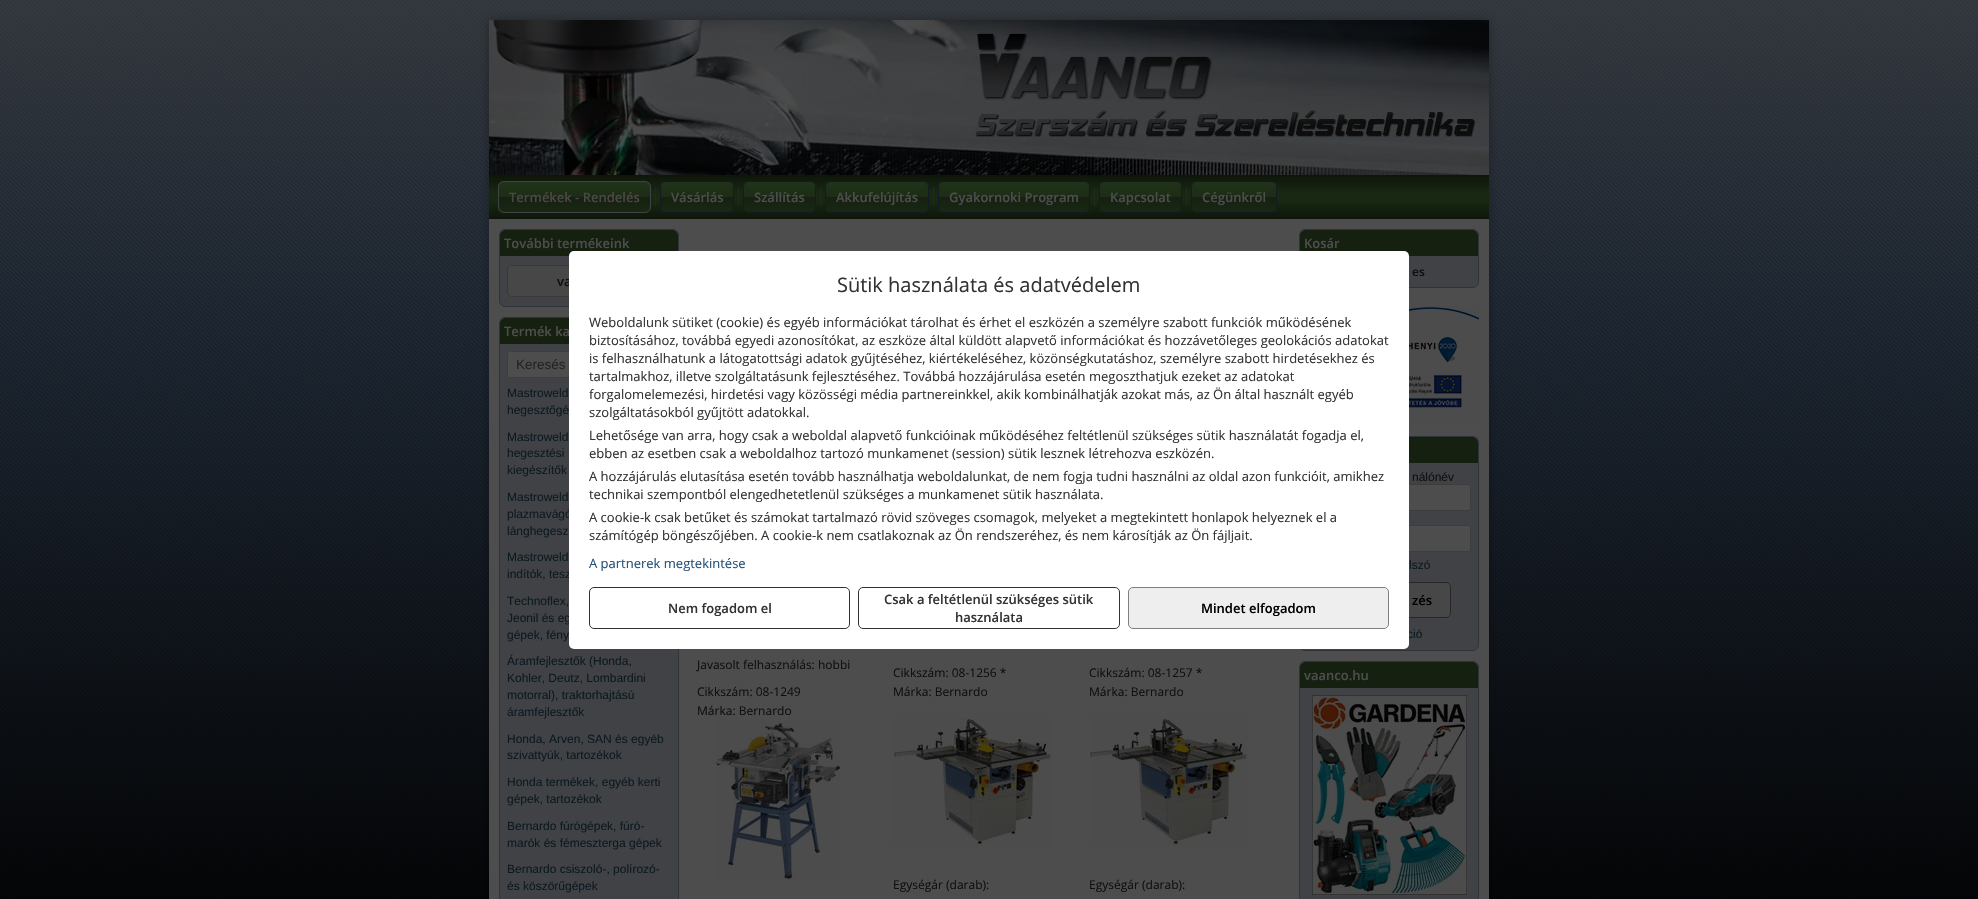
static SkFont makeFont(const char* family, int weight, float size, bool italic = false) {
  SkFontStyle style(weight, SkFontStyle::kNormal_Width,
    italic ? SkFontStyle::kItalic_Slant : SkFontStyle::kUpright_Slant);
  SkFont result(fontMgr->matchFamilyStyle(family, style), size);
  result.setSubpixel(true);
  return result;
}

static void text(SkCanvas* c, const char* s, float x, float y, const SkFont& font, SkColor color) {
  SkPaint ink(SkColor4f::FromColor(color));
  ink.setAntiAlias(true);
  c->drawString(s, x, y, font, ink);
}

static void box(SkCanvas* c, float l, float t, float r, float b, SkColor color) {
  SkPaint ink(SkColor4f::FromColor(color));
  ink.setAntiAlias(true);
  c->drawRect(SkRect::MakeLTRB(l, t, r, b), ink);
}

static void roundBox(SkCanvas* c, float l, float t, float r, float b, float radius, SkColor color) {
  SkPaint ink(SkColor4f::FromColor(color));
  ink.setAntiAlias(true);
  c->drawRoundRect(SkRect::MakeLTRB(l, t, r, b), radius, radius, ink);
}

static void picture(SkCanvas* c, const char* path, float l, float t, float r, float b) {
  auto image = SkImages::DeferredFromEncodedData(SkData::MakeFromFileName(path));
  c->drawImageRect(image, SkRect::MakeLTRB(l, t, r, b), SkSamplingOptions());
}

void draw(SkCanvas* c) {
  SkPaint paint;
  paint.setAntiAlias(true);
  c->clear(0xffffffff);
  picture(c, "img_01.png", 0, 0, 1978, 899);
  paint.setColor(0x4d000000);
  paint.setMaskFilter(SkMaskFilter::MakeBlur(kNormal_SkBlurStyle, 5));
  c->drawRect(SkRect::MakeLTRB(489, 20, 1489, 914), paint);
  paint.setMaskFilter(nullptr);
  box(c, 489, 219, 1489, 899, 0xff4d4d4d);
  picture(c, "img_02.png", 489, 20, 1489, 175);
  {
    const SkColor colors[] = {0xff0e160a, 0xff192813, 0xff192813, 0xff0e160a};
    const float stops[] = {0, 0.42f, 0.58f, 1};
    const SkPoint ends[] = {{989, 175}, {989, 219}};
    paint.setShader(SkGradientShader::MakeLinear(ends, colors, stops, 4, SkTileMode::kClamp));
    paint.setAlpha(255);
  }
  c->drawRect(SkRect::MakeLTRB(489, 175, 1489, 219), paint);
  paint.setStyle(SkPaint::kStroke_Style);
  paint.setStrokeWidth(1);
  paint.setShader(nullptr);
  paint.setColor(0xff262d35);
  paint.setPathEffect(SkDashPathEffect::Make({{1, 1}}, 0));
  c->drawPath(SkPathBuilder().moveTo(655.5f, 187).lineTo(655.5f, 207).detach(), paint);
  paint.setPathEffect(nullptr);
  c->save();
  c->clipPath(SkPathBuilder().moveTo(504, 181).lineTo(645, 181).cubicTo(648.5f, 181, 651, 183.5f, 651, 187).lineTo(651, 207).cubicTo(651, 210.5f, 648.5f, 213, 645, 213).lineTo(504, 213).cubicTo(500.5f, 213, 498, 210.5f, 498, 207).lineTo(498, 187).cubicTo(498, 183.5f, 500.5f, 181, 504, 181).close().detach(), true);
  paint.setStyle(SkPaint::kFill_Style);
  {
    const SkColor colors[] = {0xff21331a, 0xff1c2c16, 0xff162111, 0xff192714};
    const float stops[] = {0, 0.5f, 0.51f, 1};
    const SkPoint ends[] = {{575, 182}, {575, 212}};
    paint.setShader(SkGradientShader::MakeLinear(ends, colors, stops, 4, SkTileMode::kClamp));
    paint.setAlpha(255);
  }
  c->drawRect(SkRect::MakeLTRB(498, 182, 651, 212), paint);
  c->restore();
  paint.setStyle(SkPaint::kStroke_Style);
  paint.setShader(nullptr);
  paint.setColor(0xff404245);
  c->drawRoundRect(SkRect::MakeLTRB(498.5f, 181.5f, 650.5f, 212.5f), 5.5f, 5.5f, paint);
  SkFont face1 = makeFont("Open Sans", 600, 13);
  text(c, "Termékek - Rendelés", 509, 202, face1, 0xff4c4744);
  paint.setColor(0xff262d35);
  paint.setPathEffect(SkDashPathEffect::Make({{1, 1}}, 0));
  c->drawPath(SkPathBuilder().moveTo(738.5f, 187).lineTo(738.5f, 207).detach(), paint);
  paint.setPathEffect(nullptr);
  c->save();
  c->clipPath(SkPathBuilder().moveTo(666, 181).lineTo(728, 181).cubicTo(731.5f, 181, 734, 183.5f, 734, 187).lineTo(734, 207).cubicTo(734, 210.5f, 731.5f, 213, 728, 213).lineTo(666, 213).cubicTo(662.5f, 213, 660, 210.5f, 660, 207).lineTo(660, 187).cubicTo(660, 183.5f, 662.5f, 181, 666, 181).close().detach(), true);
  paint.setStyle(SkPaint::kFill_Style);
  {
    const SkColor colors[] = {0xff21331a, 0xff1c2c16, 0xff162111, 0xff192714};
    const float stops[] = {0, 0.5f, 0.51f, 1};
    const SkPoint ends[] = {{697, 182}, {697, 212}};
    paint.setShader(SkGradientShader::MakeLinear(ends, colors, stops, 4, SkTileMode::kClamp));
    paint.setAlpha(255);
  }
  c->drawRect(SkRect::MakeLTRB(660, 182, 734, 212), paint);
  c->restore();
  paint.setStyle(SkPaint::kStroke_Style);
  paint.setShader(nullptr);
  paint.setColor(0xff0f1c24);
  c->drawRoundRect(SkRect::MakeLTRB(660.5f, 181.5f, 733.5f, 212.5f), 5.5f, 5.5f, paint);
  text(c, "Vásárlás", 671, 202, face1, 0xff4d4d4d);
  paint.setColor(0xff262d35);
  paint.setPathEffect(SkDashPathEffect::Make({{1, 1}}, 0));
  c->drawPath(SkPathBuilder().moveTo(820.5f, 187).lineTo(820.5f, 207).detach(), paint);
  paint.setPathEffect(nullptr);
  c->save();
  c->clipPath(SkPathBuilder().moveTo(749, 181).lineTo(810, 181).cubicTo(813.5f, 181, 816, 183.5f, 816, 187).lineTo(816, 207).cubicTo(816, 210.5f, 813.5f, 213, 810, 213).lineTo(749, 213).cubicTo(745.5f, 213, 743, 210.5f, 743, 207).lineTo(743, 187).cubicTo(743, 183.5f, 745.5f, 181, 749, 181).close().detach(), true);
  paint.setStyle(SkPaint::kFill_Style);
  {
    const SkColor colors[] = {0xff21331a, 0xff1c2c16, 0xff162111, 0xff192714};
    const float stops[] = {0, 0.5f, 0.51f, 1};
    const SkPoint ends[] = {{780, 182}, {780, 212}};
    paint.setShader(SkGradientShader::MakeLinear(ends, colors, stops, 4, SkTileMode::kClamp));
    paint.setAlpha(255);
  }
  c->drawRect(SkRect::MakeLTRB(743, 182, 816, 212), paint);
  c->restore();
  paint.setStyle(SkPaint::kStroke_Style);
  paint.setShader(nullptr);
  paint.setColor(0xff0f1c24);
  c->drawRoundRect(SkRect::MakeLTRB(743.5f, 181.5f, 815.5f, 212.5f), 5.5f, 5.5f, paint);
  text(c, "Szállítás", 754, 202, face1, 0xff4d4d4d);
  paint.setColor(0xff262d35);
  paint.setPathEffect(SkDashPathEffect::Make({{1, 1}}, 0));
  c->drawPath(SkPathBuilder().moveTo(933.5f, 187).lineTo(933.5f, 207).detach(), paint);
  paint.setPathEffect(nullptr);
  c->save();
  c->clipPath(SkPathBuilder().moveTo(831, 181).lineTo(923, 181).cubicTo(926.5f, 181, 929, 183.5f, 929, 187).lineTo(929, 207).cubicTo(929, 210.5f, 926.5f, 213, 923, 213).lineTo(831, 213).cubicTo(827.5f, 213, 825, 210.5f, 825, 207).lineTo(825, 187).cubicTo(825, 183.5f, 827.5f, 181, 831, 181).close().detach(), true);
  paint.setStyle(SkPaint::kFill_Style);
  {
    const SkColor colors[] = {0xff21331a, 0xff1c2c16, 0xff162111, 0xff192714};
    const float stops[] = {0, 0.5f, 0.51f, 1};
    const SkPoint ends[] = {{877, 182}, {877, 212}};
    paint.setShader(SkGradientShader::MakeLinear(ends, colors, stops, 4, SkTileMode::kClamp));
    paint.setAlpha(255);
  }
  c->drawRect(SkRect::MakeLTRB(825, 182, 929, 212), paint);
  c->restore();
  paint.setStyle(SkPaint::kStroke_Style);
  paint.setShader(nullptr);
  paint.setColor(0xff0f1c24);
  c->drawRoundRect(SkRect::MakeLTRB(825.5f, 181.5f, 928.5f, 212.5f), 5.5f, 5.5f, paint);
  text(c, "Akkufelújítás", 836, 202, face1, 0xff4d4d4d);
  paint.setColor(0xff262d35);
  paint.setPathEffect(SkDashPathEffect::Make({{1, 1}}, 0));
  c->drawPath(SkPathBuilder().moveTo(1094.5f, 187).lineTo(1094.5f, 207).detach(), paint);
  paint.setPathEffect(nullptr);
  c->save();
  c->clipPath(SkPathBuilder().moveTo(944, 181).lineTo(1084, 181).cubicTo(1087.5f, 181, 1090, 183.5f, 1090, 187).lineTo(1090, 207).cubicTo(1090, 210.5f, 1087.5f, 213, 1084, 213).lineTo(944, 213).cubicTo(940.5f, 213, 938, 210.5f, 938, 207).lineTo(938, 187).cubicTo(938, 183.5f, 940.5f, 181, 944, 181).close().detach(), true);
  paint.setStyle(SkPaint::kFill_Style);
  {
    const SkColor colors[] = {0xff21331a, 0xff1c2c16, 0xff162111, 0xff192714};
    const float stops[] = {0, 0.5f, 0.51f, 1};
    const SkPoint ends[] = {{1014, 182}, {1014, 212}};
    paint.setShader(SkGradientShader::MakeLinear(ends, colors, stops, 4, SkTileMode::kClamp));
    paint.setAlpha(255);
  }
  c->drawRect(SkRect::MakeLTRB(938, 182, 1090, 212), paint);
  c->restore();
  paint.setStyle(SkPaint::kStroke_Style);
  paint.setShader(nullptr);
  paint.setColor(0xff0f1c24);
  c->drawRoundRect(SkRect::MakeLTRB(938.5f, 181.5f, 1089.5f, 212.5f), 5.5f, 5.5f, paint);
  text(c, "Gyakornoki Program", 949, 202, face1, 0xff4d4d4d);
  paint.setColor(0xff262d35);
  paint.setPathEffect(SkDashPathEffect::Make({{1, 1}}, 0));
  c->drawPath(SkPathBuilder().moveTo(1186.5f, 187).lineTo(1186.5f, 207).detach(), paint);
  paint.setPathEffect(nullptr);
  c->save();
  c->clipPath(SkPathBuilder().moveTo(1105, 181).lineTo(1176, 181).cubicTo(1179.5f, 181, 1182, 183.5f, 1182, 187).lineTo(1182, 207).cubicTo(1182, 210.5f, 1179.5f, 213, 1176, 213).lineTo(1105, 213).cubicTo(1101.5f, 213, 1099, 210.5f, 1099, 207).lineTo(1099, 187).cubicTo(1099, 183.5f, 1101.5f, 181, 1105, 181).close().detach(), true);
  paint.setStyle(SkPaint::kFill_Style);
  {
    const SkColor colors[] = {0xff21331a, 0xff1c2c16, 0xff162111, 0xff192714};
    const float stops[] = {0, 0.5f, 0.51f, 1};
    const SkPoint ends[] = {{1141, 182}, {1141, 212}};
    paint.setShader(SkGradientShader::MakeLinear(ends, colors, stops, 4, SkTileMode::kClamp));
    paint.setAlpha(255);
  }
  c->drawRect(SkRect::MakeLTRB(1099, 182, 1182, 212), paint);
  c->restore();
  paint.setStyle(SkPaint::kStroke_Style);
  paint.setShader(nullptr);
  paint.setColor(0xff0f1c24);
  c->drawRoundRect(SkRect::MakeLTRB(1099.5f, 181.5f, 1181.5f, 212.5f), 5.5f, 5.5f, paint);
  text(c, "Kapcsolat", 1110, 202, face1, 0xff4d4d4d);
  c->save();
  c->clipPath(SkPathBuilder().moveTo(1197, 181).lineTo(1271, 181).cubicTo(1274.5f, 181, 1277, 183.5f, 1277, 187).lineTo(1277, 207).cubicTo(1277, 210.5f, 1274.5f, 213, 1271, 213).lineTo(1197, 213).cubicTo(1193.5f, 213, 1191, 210.5f, 1191, 207).lineTo(1191, 187).cubicTo(1191, 183.5f, 1193.5f, 181, 1197, 181).close().detach(), true);
  paint.setStyle(SkPaint::kFill_Style);
  {
    const SkColor colors[] = {0xff21331a, 0xff1c2c16, 0xff162111, 0xff192714};
    const float stops[] = {0, 0.5f, 0.51f, 1};
    const SkPoint ends[] = {{1234, 182}, {1234, 212}};
    paint.setShader(SkGradientShader::MakeLinear(ends, colors, stops, 4, SkTileMode::kClamp));
    paint.setAlpha(255);
  }
  c->drawRect(SkRect::MakeLTRB(1191, 182, 1277, 212), paint);
  c->restore();
  paint.setStyle(SkPaint::kStroke_Style);
  paint.setShader(nullptr);
  paint.setColor(0xff0f1c24);
  c->drawRoundRect(SkRect::MakeLTRB(1191.5f, 181.5f, 1276.5f, 212.5f), 5.5f, 5.5f, paint);
  text(c, "Cégünkről", 1202, 202, face1, 0xff4d4d4d);
  paint.setStyle(SkPaint::kFill_Style);
  paint.setColor(0xff404245);
  c->drawRoundRect(SkRect::MakeLTRB(499.5f, 229.5f, 678.5f, 306.5f), 5.5f, 5.5f, paint);
  paint.setStyle(SkPaint::kStroke_Style);
  paint.setColor(0xff2e333a);
  c->drawRoundRect(SkRect::MakeLTRB(499.5f, 229.5f, 678.5f, 306.5f), 5.5f, 5.5f, paint);
  paint.setStyle(SkPaint::kFill_Style);
  paint.setColor(0xff162011);
  c->drawPath(SkPathBuilder().moveTo(506, 230).lineTo(672, 230).cubicTo(675.5f, 230, 678, 232.5f, 678, 236).lineTo(678, 256).lineTo(500, 256).lineTo(500, 236).cubicTo(500, 232.5f, 502.5f, 230, 506, 230).close().detach(), paint);
  text(c, "További termékeink", 504, 248, face1, 0xff4d4d4d);
  paint.setColor(0xff474747);
  c->drawRoundRect(SkRect::MakeLTRB(507.5f, 265.5f, 670.5f, 296.5f), 4.5f, 4.5f, paint);
  paint.setStyle(SkPaint::kStroke_Style);
  paint.setColor(0xff383838);
  c->drawRoundRect(SkRect::MakeLTRB(507.5f, 265.5f, 670.5f, 296.5f), 4.5f, 4.5f, paint);
  text(c, "va", 557, 286, face1, 0xff0f0f0f);
  paint.setStyle(SkPaint::kFill_Style);
  paint.setColor(0xff404245);
  c->drawRoundRect(SkRect::MakeLTRB(499.5f, 317.5f, 678.5f, 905.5f), 5.5f, 5.5f, paint);
  paint.setStyle(SkPaint::kStroke_Style);
  paint.setColor(0xff2e333a);
  c->drawRoundRect(SkRect::MakeLTRB(499.5f, 317.5f, 678.5f, 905.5f), 5.5f, 5.5f, paint);
  paint.setStyle(SkPaint::kFill_Style);
  paint.setColor(0xff162011);
  c->drawPath(SkPathBuilder().moveTo(506, 318).lineTo(672, 318).cubicTo(675.5f, 318, 678, 320.5f, 678, 324).lineTo(678, 344).lineTo(500, 344).lineTo(500, 324).cubicTo(500, 320.5f, 502.5f, 318, 506, 318).close().detach(), paint);
  text(c, "Termék ka", 504, 336, face1, 0xff4d4d4d);
  paint.setColor(0xff4d4d4d);
  c->drawRoundRect(SkRect::MakeLTRB(507.5f, 351.5f, 662.5f, 377.5f), 2.5f, 2.5f, paint);
  paint.setStyle(SkPaint::kStroke_Style);
  paint.setColor(0xff3d3d3d);
  c->drawRoundRect(SkRect::MakeLTRB(507.5f, 351.5f, 662.5f, 377.5f), 2.5f, 2.5f, paint);
  SkFont face2 = makeFont("Liberation Sans", 400, 13.5f);
  text(c, "Keresés", 516, 369, face2, 0xff232323);
  SkFont face3 = makeFont("Liberation Sans", 400, 12);
  text(c, "Mastroweld", 507, 397, face3, 0xff0c1920);
  text(c, "hegesztőgé", 507, 414, face3, 0xff0c1920);
  text(c, "Mastroweld", 507, 441, face3, 0xff0c1920);
  text(c, "hegesztési", 507, 457, face3, 0xff0c1920);
  text(c, "kiegészítők", 507, 474, face3, 0xff0c1920);
  text(c, "Mastroweld", 507, 501, face3, 0xff0c1920);
  text(c, "plazmavágó", 507, 518, face3, 0xff0c1920);
  text(c, "lánghegesz", 507, 535, face3, 0xff0c1920);
  text(c, "Mastroweld", 507, 561, face3, 0xff0c1920);
  text(c, "indítók, tesz", 507, 578, face3, 0xff0c1920);
  text(c, "Technoflex,", 507, 605, face3, 0xff0c1920);
  text(c, "Jeonil és eg", 507, 622, face3, 0xff0c1920);
  text(c, "gépek, fény", 507, 639, face3, 0xff0c1920);
  text(c, "Áramfejlesztők (Honda,", 507, 665, face3, 0xff0c1920);
  text(c, "Kohler, Deutz, Lombardini", 507, 682, face3, 0xff0c1920);
  text(c, "motorral), traktorhajtású", 507, 699, face3, 0xff0c1920);
  text(c, "áramfejlesztők", 507, 716, face3, 0xff0c1920);
  text(c, "Honda, Arven, SAN és egyéb", 507, 743, face3, 0xff0c1920);
  text(c, "szivattyúk, tartozékok", 507, 759, face3, 0xff0c1920);
  text(c, "Honda termékek, egyéb kerti", 507, 786, face3, 0xff0c1920);
  text(c, "gépek, tartozékok", 507, 803, face3, 0xff0c1920);
  text(c, "Bernardo fúrógépek, fúró-", 507, 830, face3, 0xff0c1920);
  text(c, "marók és fémeszterga gépek", 507, 847, face3, 0xff0c1920);
  text(c, "Bernardo csiszoló-, polírozó-", 507, 873, face3, 0xff0c1920);
  text(c, "és köszörűgépek", 507, 890, face3, 0xff0c1920);
  paint.setStyle(SkPaint::kFill_Style);
  paint.setColor(0xff404245);
  c->drawRoundRect(SkRect::MakeLTRB(1299.5f, 229.5f, 1478.5f, 287.5f), 5.5f, 5.5f, paint);
  paint.setStyle(SkPaint::kStroke_Style);
  paint.setColor(0xff2e333a);
  c->drawRoundRect(SkRect::MakeLTRB(1299.5f, 229.5f, 1478.5f, 287.5f), 5.5f, 5.5f, paint);
  paint.setStyle(SkPaint::kFill_Style);
  paint.setColor(0xff162011);
  c->drawPath(SkPathBuilder().moveTo(1306, 230).lineTo(1472, 230).cubicTo(1475.5f, 230, 1478, 232.5f, 1478, 236).lineTo(1478, 256).lineTo(1300, 256).lineTo(1300, 236).cubicTo(1300, 232.5f, 1302.5f, 230, 1306, 230).close().detach(), paint);
  text(c, "Kosár", 1304, 248, face1, 0xff4d4d4d);
  SkFont face4 = makeFont("Open Sans", 600, 12);
  text(c, "es", 1412, 276, face4, 0xff0f0f0f);
  picture(c, "img_03.png", 1409, 306, 1479, 422);
  paint.setColor(0xff404245);
  c->drawRoundRect(SkRect::MakeLTRB(1299.5f, 436.5f, 1478.5f, 650.5f), 5.5f, 5.5f, paint);
  paint.setStyle(SkPaint::kStroke_Style);
  paint.setColor(0xff2e333a);
  c->drawRoundRect(SkRect::MakeLTRB(1299.5f, 436.5f, 1478.5f, 650.5f), 5.5f, 5.5f, paint);
  paint.setStyle(SkPaint::kFill_Style);
  paint.setColor(0xff162011);
  c->drawPath(SkPathBuilder().moveTo(1306, 437).lineTo(1472, 437).cubicTo(1475.5f, 437, 1478, 439.5f, 1478, 443).lineTo(1478, 463).lineTo(1300, 463).lineTo(1300, 443).cubicTo(1300, 439.5f, 1302.5f, 437, 1306, 437).close().detach(), paint);
  text(c, "nálónév", 1412, 481, face3, 0xff0f0f0f);
  paint.setColor(0xff4d4d4d);
  c->drawRoundRect(SkRect::MakeLTRB(1307.5f, 484.5f, 1470.5f, 510.5f), 2.5f, 2.5f, paint);
  paint.setStyle(SkPaint::kStroke_Style);
  paint.setColor(0xff3d3d3d);
  c->drawRoundRect(SkRect::MakeLTRB(1307.5f, 484.5f, 1470.5f, 510.5f), 2.5f, 2.5f, paint);
  paint.setStyle(SkPaint::kFill_Style);
  paint.setColor(0xff4d4d4d);
  c->drawRoundRect(SkRect::MakeLTRB(1307.5f, 525.5f, 1470.5f, 551.5f), 2.5f, 2.5f, paint);
  paint.setStyle(SkPaint::kStroke_Style);
  paint.setColor(0xff3d3d3d);
  c->drawRoundRect(SkRect::MakeLTRB(1307.5f, 525.5f, 1470.5f, 551.5f), 2.5f, 2.5f, paint);
  text(c, "lszó", 1409, 569, face3, 0xff0c1920);
  paint.setStyle(SkPaint::kFill_Style);
  paint.setColor(0xff474747);
  c->drawRoundRect(SkRect::MakeLTRB(1327.5f, 582.5f, 1450.5f, 617.5f), 4.5f, 4.5f, paint);
  paint.setStyle(SkPaint::kStroke_Style);
  paint.setColor(0xff262626);
  c->drawRoundRect(SkRect::MakeLTRB(1327.5f, 582.5f, 1450.5f, 617.5f), 4.5f, 4.5f, paint);
  text(c, "zés", 1412, 605, face1, 0xff000000);
  text(c, "ció", 1407, 638, face3, 0xff0c1920);
  paint.setStyle(SkPaint::kFill_Style);
  paint.setColor(0xff404245);
  c->drawRoundRect(SkRect::MakeLTRB(1299.5f, 661.5f, 1478.5f, 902.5f), 5.5f, 5.5f, paint);
  paint.setStyle(SkPaint::kStroke_Style);
  paint.setColor(0xff2e333a);
  c->drawRoundRect(SkRect::MakeLTRB(1299.5f, 661.5f, 1478.5f, 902.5f), 5.5f, 5.5f, paint);
  paint.setStyle(SkPaint::kFill_Style);
  paint.setColor(0xff162011);
  c->drawPath(SkPathBuilder().moveTo(1306, 662).lineTo(1472, 662).cubicTo(1475.5f, 662, 1478, 664.5f, 1478, 668).lineTo(1478, 688).lineTo(1300, 688).lineTo(1300, 668).cubicTo(1300, 664.5f, 1302.5f, 662, 1306, 662).close().detach(), paint);
  text(c, "vaanco.hu", 1304, 680, face1, 0xff4d4d4d);
  picture(c, "img_04.png", 1312, 695, 1467, 895);
  SkFont face5 = makeFont("Open Sans", 400, 12);
  text(c, "Javasolt felhasználás: hobbi", 697, 669, face5, 0xff0f0f0f);
  text(c, "Cikkszám: 08-1249", 697, 696, face5, 0xff0f0f0f);
  text(c, "Márka: Bernardo", 697, 715, face5, 0xff0f0f0f);
  picture(c, "img_05.png", 716, 721, 841, 881);
  text(c, "Cikkszám: 08-1256 *", 893, 677, face5, 0xff0f0f0f);
  text(c, "Márka: Bernardo", 893, 696, face5, 0xff0f0f0f);
  picture(c, "img_06.png", 894, 718, 1052, 846);
  text(c, "Egységár (darab):", 893, 889, face5, 0xff0f0f0f);
  text(c, "Cikkszám: 08-1257 *", 1089, 677, face5, 0xff0f0f0f);
  text(c, "Márka: Bernardo", 1089, 696, face5, 0xff0f0f0f);
  picture(c, "img_06.png", 1090, 718, 1248, 846);
  text(c, "Egységár (darab):", 1089, 889, face5, 0xff0f0f0f);
  roundBox(c, 569, 251, 1409, 649, 5, 0xffffffff);
  SkFont face6 = makeFont("Open Sans", 400, 20);
  text(c, "Sütik használata és adatvédelem", 837, 292, face6, 0xff333333);
  SkFont face7 = makeFont("Open Sans", 400, 13);
  text(c, "Weboldalunk sütiket (cookie) és egyéb információkat tárolhat és érhet el eszközén a személyre szabott funkciók működésének", 589, 327, face7, 0xff333333);
  text(c, "biztosításához, továbbá egyedi azonosítókat, az eszköze által küldött alapvető információkat és hozzávetőleges geolokációs adatokat", 589, 345, face7, 0xff333333);
  text(c, "is felhasználhatunk a látogatottsági adatok gyűjtéséhez, kiértékeléséhez, közönségkutatáshoz, személyre szabott hirdetésekhez és", 589, 363, face7, 0xff333333);
  text(c, "tartalmakhoz, illetve szolgáltatásunk fejlesztéséhez. Továbbá hozzájárulása esetén megoszthatjuk ezeket az adatokat", 589, 381, face7, 0xff333333);
  text(c, "forgalomelemezési, hirdetési vagy közösségi média partnereinkkel, akik kombinálhatják azokat más, az Ön által használt egyéb", 589, 399, face7, 0xff333333);
  text(c, "szolgáltatásokból gyűjtött adatokkal.", 589, 417, face7, 0xff333333);
  text(c, "Lehetősége van arra, hogy csak a weboldal alapvető funkcióinak működéséhez feltétlenül szükséges sütik használatát fogadja el,", 589, 440, face7, 0xff333333);
  text(c, "ebben az esetben csak a weboldalhoz tartozó munkamenet (session) sütik lesznek létrehozva eszközén.", 589, 458, face7, 0xff333333);
  text(c, "A hozzájárulás elutasítása esetén tovább használhatja weboldalunkat, de nem fogja tudni használni az oldal azon funkcióit, amikhez", 589, 481, face7, 0xff333333);
  text(c, "technikai szempontból elengedhetetlenül szükséges a munkamenet sütik használata.", 589, 499, face7, 0xff333333);
  text(c, "A cookie-k csak betűket és számokat tartalmazó rövid szöveges csomagok, melyeket a megtekintett honlapok helyeznek el a", 589, 522, face7, 0xff333333);
  text(c, "számítógép böngészőjében. A cookie-k nem csatlakoznak az Ön rendszeréhez, és nem károsítják az Ön fájljait.", 589, 540, face7, 0xff333333);
  text(c, "A partnerek megtekintése", 589, 568, face7, 0xff245076);
  paint.setStyle(SkPaint::kStroke_Style);
  paint.setColor(0xff333333);
  c->drawRoundRect(SkRect::MakeLTRB(589.5f, 587.5f, 849.5f, 628.5f), 4.5f, 4.5f, paint);
  text(c, "Nem fogadom el", 668, 613, face1, 0xff333333);
  c->drawRoundRect(SkRect::MakeLTRB(858.5f, 587.5f, 1119.5f, 628.5f), 4.5f, 4.5f, paint);
  text(c, "Csak a feltétlenül szükséges sütik", 884, 604, face1, 0xff333333);
  text(c, "használata", 955, 622, face1, 0xff333333);
  paint.setStyle(SkPaint::kFill_Style);
  paint.setColor(0xffeeeeee);
  c->drawRoundRect(SkRect::MakeLTRB(1128.5f, 587.5f, 1388.5f, 628.5f), 4.5f, 4.5f, paint);
  paint.setStyle(SkPaint::kStroke_Style);
  paint.setColor(0xff808080);
  c->drawRoundRect(SkRect::MakeLTRB(1128.5f, 587.5f, 1388.5f, 628.5f), 4.5f, 4.5f, paint);
  text(c, "Mindet elfogadom", 1201, 613, face1, 0xff000000);
}
